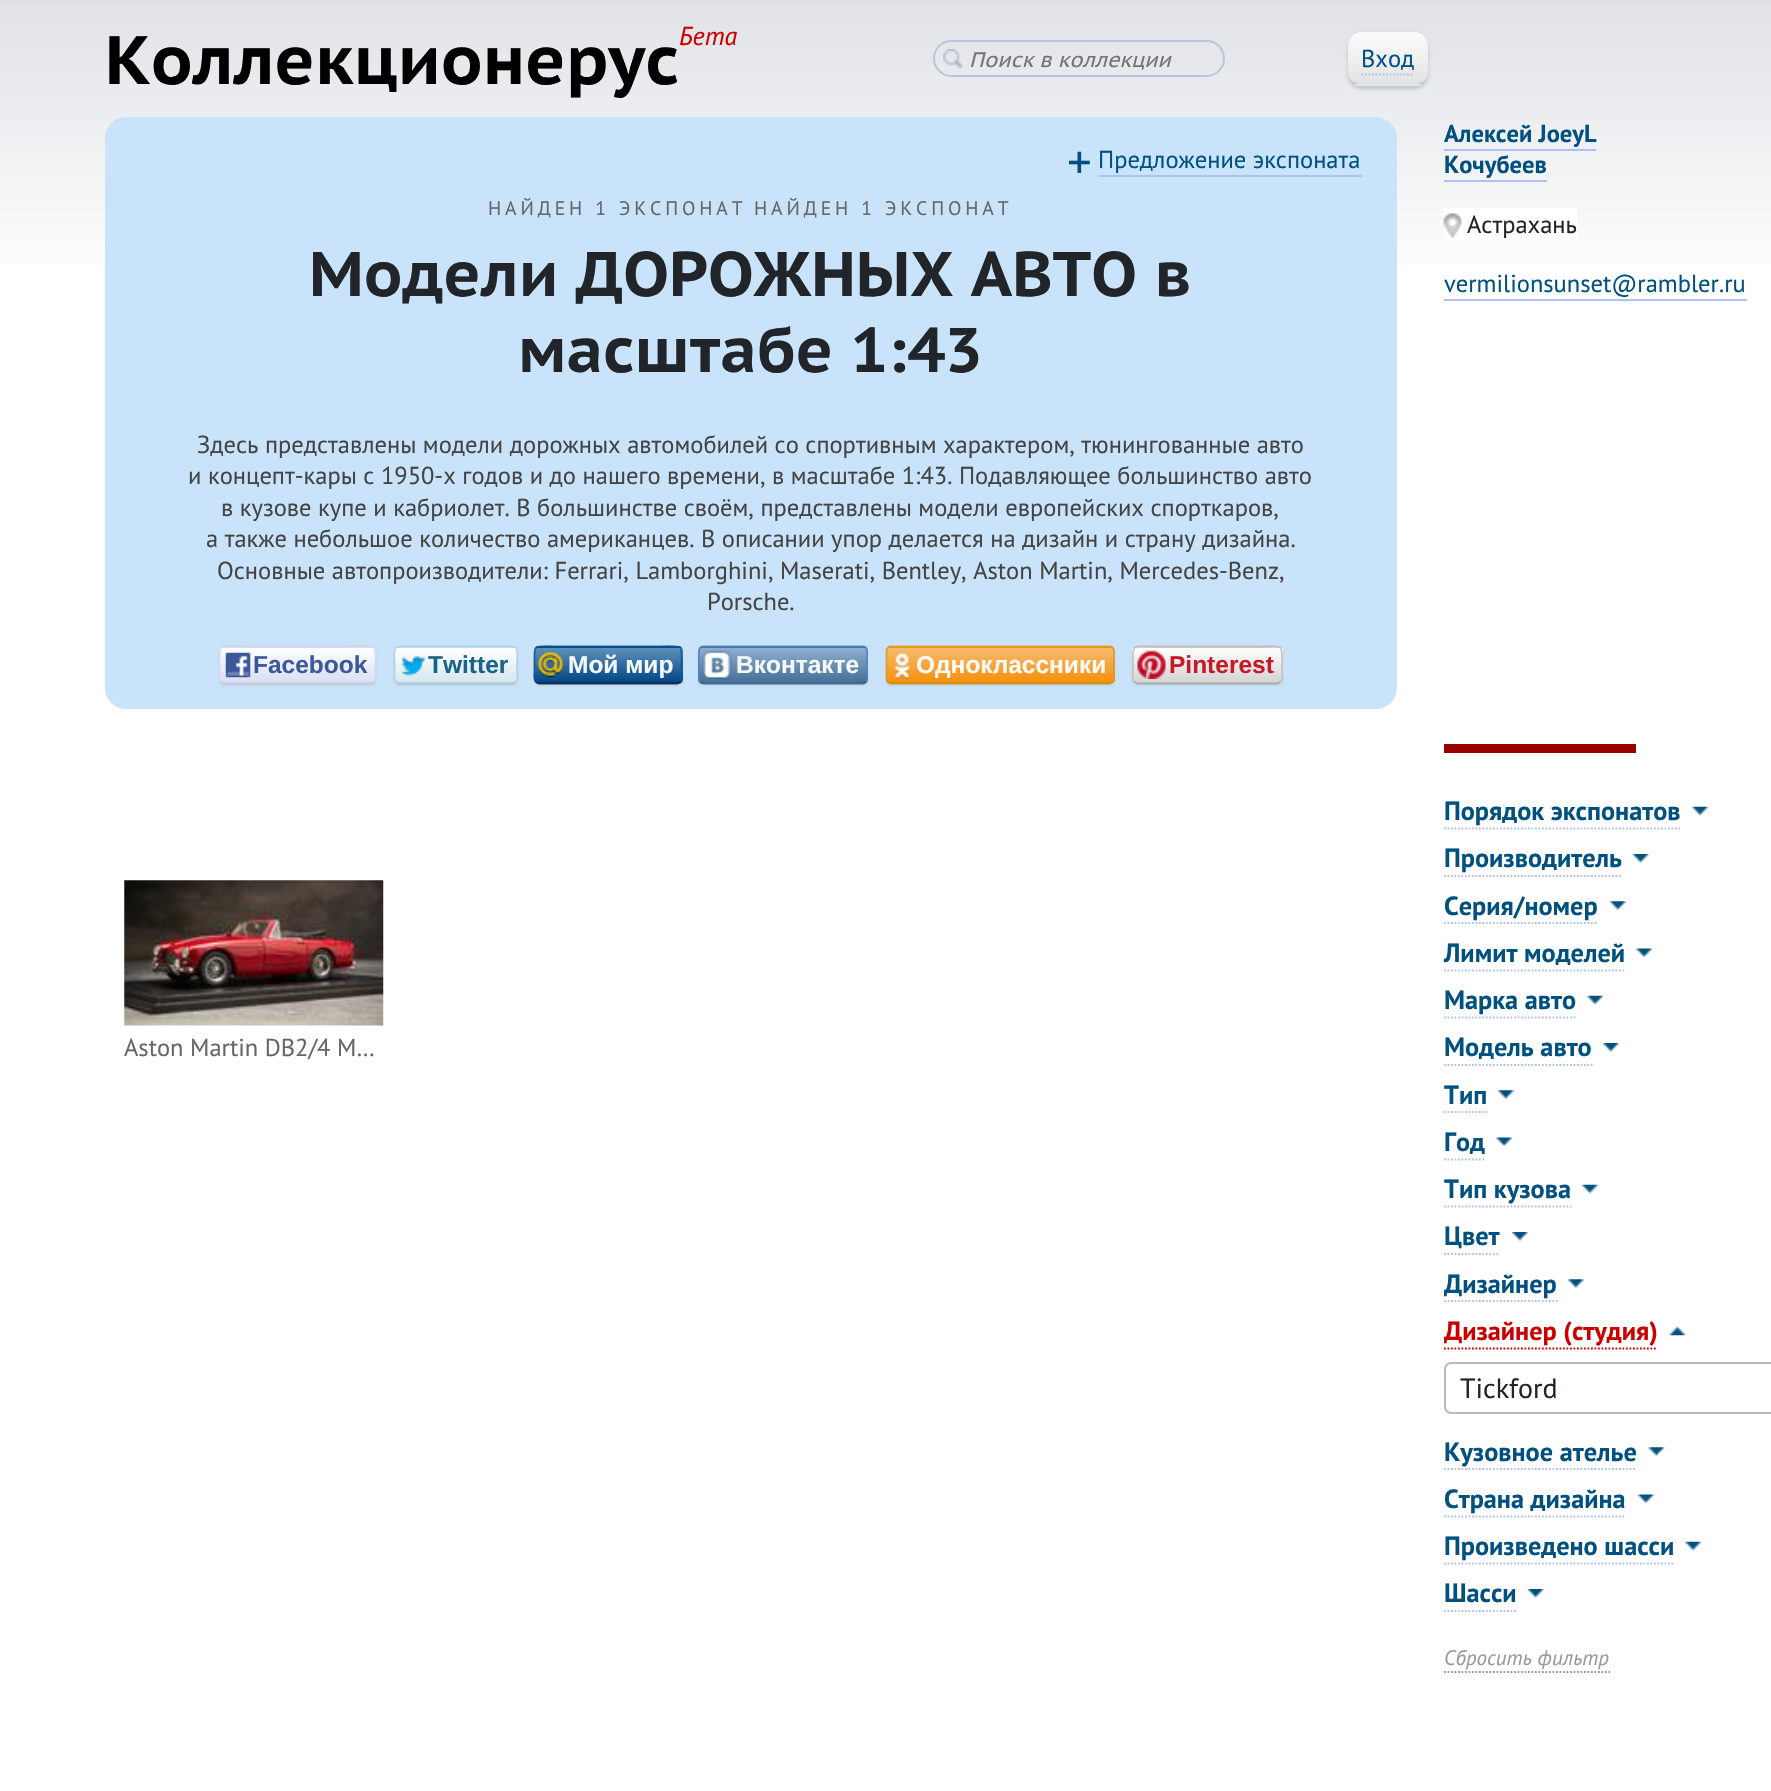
static SkFont makeFont(const char* family, int weight, float size, bool italic = false) {
  SkFontStyle style(weight, SkFontStyle::kNormal_Width,
    italic ? SkFontStyle::kItalic_Slant : SkFontStyle::kUpright_Slant);
  SkFont result(fontMgr->matchFamilyStyle(family, style), size);
  result.setSubpixel(true);
  return result;
}

static void text(SkCanvas* c, const char* s, float x, float y, const SkFont& font, SkColor color) {
  SkPaint ink(SkColor4f::FromColor(color));
  ink.setAntiAlias(true);
  c->drawString(s, x, y, font, ink);
}

static void spacedText(SkCanvas* c, const char* s, float x, float y, const SkFont& font, const SkPaint& ink, float letter, float word) {
  std::vector<SkGlyphID> glyphs(font.countText(s, strlen(s), SkTextEncoding::kUTF8));
  std::vector<float> xs(glyphs.size());
  font.textToGlyphs(s, strlen(s), SkTextEncoding::kUTF8, glyphs);
  font.getXPos(glyphs, xs, x);
  float extra = 0;
  for (size_t i = 0; i < glyphs.size(); i++) {
    xs[i] += extra;
    extra += letter + word * (glyphs[i] == font.unicharToGlyph(' '));
  }
  c->drawTextBlob(SkTextBlob::MakeFromPosHGlyphs(glyphs, xs, y, font), 0, 0, ink);
}

static void box(SkCanvas* c, float l, float t, float r, float b, SkColor color) {
  SkPaint ink(SkColor4f::FromColor(color));
  ink.setAntiAlias(true);
  c->drawRect(SkRect::MakeLTRB(l, t, r, b), ink);
}

static void roundBox(SkCanvas* c, float l, float t, float r, float b, float radius, SkColor color) {
  SkPaint ink(SkColor4f::FromColor(color));
  ink.setAntiAlias(true);
  c->drawRoundRect(SkRect::MakeLTRB(l, t, r, b), radius, radius, ink);
}

static void picture(SkCanvas* c, const char* path, float l, float t, float r, float b) {
  auto image = SkImages::DeferredFromEncodedData(SkData::MakeFromFileName(path));
  c->drawImageRect(image, SkRect::MakeLTRB(l, t, r, b), SkSamplingOptions());
}

void draw(SkCanvas* c) {
  SkPaint paint;
  paint.setAntiAlias(true);
  c->clear(0xffffffff);
  {
    const SkColor colors[] = {0xffe0e2e6, 0xffffffff};
    const float stops[] = {0, 1};
    const SkPoint ends[] = {{886, 0}, {886, 289}};
    paint.setShader(SkGradientShader::MakeLinear(ends, colors, stops, 2, SkTileMode::kClamp));
    paint.setAlpha(255);
  }
  c->drawRect(SkRect::MakeLTRB(0, 0, 1771, 266), paint);
  SkFont face1 = makeFont("PT Sans Caption", 700, 68.25f);
  text(c, "Коллекционерус", 105, 84, face1, 0xff000000);
  SkFont face2 = makeFont("PT Sans", 400, 26, true);
  text(c, "Бета", 679, 45, face2, 0xffcc0000);
  picture(c, "img_01.png", 943, 49, 963, 69);
  paint.setStyle(SkPaint::kStroke_Style);
  paint.setStrokeWidth(2);
  paint.setShader(nullptr);
  paint.setColor(0xffb6c6db);
  c->drawRoundRect(SkRect::MakeLTRB(934, 41, 1224, 76), 17.5f, 17.5f, paint);
  SkFont face3 = makeFont("PT Sans Caption", 400, 21, true);
  text(c, "Поиск в коллекции", 969, 67, face3, 0xff757575);
  paint.setStyle(SkPaint::kFill_Style);
  paint.setColor(0xffbbc5cc);
  paint.setMaskFilter(SkMaskFilter::MakeBlur(kNormal_SkBlurStyle, 2));
  c->drawRoundRect(SkRect::MakeLTRB(1348, 35, 1428, 89), 14, 14, paint);
  paint.setMaskFilter(nullptr);
  {
    const SkColor colors[] = {0xfffcfcfc, 0xffe3e3e3};
    const float stops[] = {0, 1};
    const SkPoint ends[] = {{1388, 31}, {1388, 84}};
    paint.setShader(SkGradientShader::MakeLinear(ends, colors, stops, 2, SkTileMode::kClamp));
    paint.setAlpha(255);
  }
  c->drawPath(SkPathBuilder().moveTo(1362, 32).lineTo(1414, 32).cubicTo(1422, 32, 1428, 38, 1428, 46).lineTo(1428, 72).cubicTo(1428, 79, 1422, 84, 1414, 84).lineTo(1362, 84).cubicTo(1354, 84, 1348, 79, 1348, 72).lineTo(1348, 46).cubicTo(1348, 38, 1354, 32, 1362, 32).close().detach(), paint);
  box(c, 1355, 84, 1421, 86, 0xffe5e5e5);
  SkFont face4 = makeFont("PT Sans", 400, 24.5f);
  text(c, "Вход", 1361, 67, face4, 0xff005080);
  paint.setStyle(SkPaint::kStroke_Style);
  paint.setStrokeWidth(1.8f);
  paint.setShader(nullptr);
  paint.setColor(0xffb0c0f0);
  paint.setPathEffect(SkDashPathEffect::Make({{1.75f, 1.75f}}, 0));
  c->drawPath(SkPathBuilder().moveTo(1361.5f, 74.5f).lineTo(1414, 74.5f).detach(), paint);
  paint.setPathEffect(nullptr);
  roundBox(c, 105, 117, 1397, 709, 21, 0xffc9e3fa);
  box(c, 1099, 175, 1362, 177, 0xffb0c0f0);
  SkFont face5 = makeFont("PT Sans", 400, 49);
  text(c, "+", 1067, 179, face5, 0xff005080);
  text(c, "Предложение экспоната", 1098, 168, face4, 0xff005080);
  SkFont face6 = makeFont("PT Sans", 400, 19.6f);
  paint.setStyle(SkPaint::kFill_Style);
  paint.setColor(0xff666666);
  spacedText(c, "НАЙДЕН 1 ЭКСПОНАТ", 488, 215, face6, paint, 3.9f, 0);
  spacedText(c, "НАЙДЕН 1 ЭКСПОНАТ", 754, 215, face6, paint, 3.9f, 0);
  SkFont face7 = makeFont("PT Sans Caption", 700, 63);
  text(c, "Модели ДОРОЖНЫХ АВТО в", 309, 296, face7, 0xff212529);
  text(c, "масштабе 1:43", 518, 372, face7, 0xff212529);
  text(c, "Здесь представлены модели дорожных автомобилей со спортивным характером, тюнингованные авто", 197, 453, face4, 0xff444444);
  text(c, "и концепт-кары с 1950-х годов и до нашего времени, в масштабе 1:43. Подавляющее большинство авто", 188, 484, face4, 0xff444444);
  text(c, "в кузове купе и кабриолет. В большинстве своём, представлены модели европейских спорткаров,", 221, 516, face4, 0xff444444);
  text(c, "а также небольшое количество американцев. В описании упор делается на дизайн и страну дизайна.", 206, 547, face4, 0xff444444);
  text(c, "Основные автопроизводители: Ferrari, Lamborghini, Maserati, Bentley, Aston Martin, Mercedes-Benz,", 217, 579, face4, 0xff444444);
  text(c, "Porsche.", 707, 610, face4, 0xff444444);
  paint.setColor(0x0d000000);
  paint.setMaskFilter(SkMaskFilter::MakeBlur(kNormal_SkBlurStyle, 1));
  c->drawRoundRect(SkRect::MakeLTRB(219, 648, 376, 686), 5, 5, paint);
  paint.setMaskFilter(nullptr);
  c->save();
  c->clipPath(SkPathBuilder().moveTo(224, 646).lineTo(371, 646).cubicTo(374, 646, 376, 648, 376, 651).lineTo(376, 679).cubicTo(376, 682, 374, 684, 371, 684).lineTo(224, 684).cubicTo(221, 684, 219, 682, 219, 679).lineTo(219, 651).cubicTo(219, 648, 221, 646, 224, 646).close().detach(), true);
  {
    const SkColor colors[] = {0xffffffff, 0xffd8def4};
    const float stops[] = {0, 1};
    const SkPoint ends[] = {{298, 613}, {298, 648}};
    paint.setShader(SkGradientShader::MakeLinear(ends, colors, stops, 2, SkTileMode::kClamp));
    paint.setAlpha(255);
  }
  c->drawRect(SkRect::MakeLTRB(219, 646, 376, 648), paint);
  {
    const SkColor colors[] = {0xffffffff, 0xffd8def4};
    const float stops[] = {0, 1};
    const SkPoint ends[] = {{298, 648}, {298, 683}};
    paint.setShader(SkGradientShader::MakeLinear(ends, colors, stops, 2, SkTileMode::kClamp));
    paint.setAlpha(255);
  }
  c->drawRect(SkRect::MakeLTRB(219, 648, 376, 683), paint);
  {
    const SkColor colors[] = {0xffffffff, 0xffd8def4};
    const float stops[] = {0, 1};
    const SkPoint ends[] = {{298, 683}, {298, 718}};
    paint.setShader(SkGradientShader::MakeLinear(ends, colors, stops, 2, SkTileMode::kClamp));
    paint.setAlpha(255);
  }
  c->drawRect(SkRect::MakeLTRB(219, 683, 376, 684), paint);
  c->restore();
  paint.setStyle(SkPaint::kStroke_Style);
  paint.setShader(nullptr);
  paint.setColor(0xccbdc2cb);
  c->drawPath(SkPathBuilder().moveTo(374, 682).cubicTo(373.5f, 683, 372, 683.5f, 371, 683.5f).lineTo(224, 683.5f).cubicTo(223, 683.5f, 221.5f, 683, 221, 682).detach(), paint);
  paint.setColor(0xcccad4e7);
  c->drawPath(SkPathBuilder().moveTo(221, 682).cubicTo(218, 679.5f, 219.5f, 672.5f, 219.5f, 669.5f).cubicTo(219.5f, 640.5f, 215.5f, 646.5f, 248.5f, 646.5f).lineTo(346.5f, 646.5f).cubicTo(379.5f, 646.5f, 375.5f, 640.5f, 375.5f, 669.5f).cubicTo(375.5f, 672.5f, 377, 679.5f, 374, 682).detach(), paint);
  picture(c, "img_02.png", 225, 652, 251, 678);
  SkFont face8 = makeFont("Liberation Sans", 700, 24.5f);
  text(c, "Facebook", 253, 673, face8, 0xff3b5998);
  paint.setStyle(SkPaint::kFill_Style);
  paint.setColor(0x0d000000);
  paint.setMaskFilter(SkMaskFilter::MakeBlur(kNormal_SkBlurStyle, 1));
  c->drawRoundRect(SkRect::MakeLTRB(394, 648, 518, 686), 5, 5, paint);
  paint.setMaskFilter(nullptr);
  c->save();
  c->clipPath(SkPathBuilder().moveTo(399, 646).lineTo(513, 646).cubicTo(516, 646, 518, 648, 518, 651).lineTo(518, 679).cubicTo(518, 682, 516, 684, 513, 684).lineTo(399, 684).cubicTo(396, 684, 394, 682, 394, 679).lineTo(394, 651).cubicTo(394, 648, 396, 646, 399, 646).close().detach(), true);
  {
    const SkColor colors[] = {0xffffffff, 0xffd5e6ef};
    const float stops[] = {0, 1};
    const SkPoint ends[] = {{456, 613}, {456, 648}};
    paint.setShader(SkGradientShader::MakeLinear(ends, colors, stops, 2, SkTileMode::kClamp));
    paint.setAlpha(255);
  }
  c->drawRect(SkRect::MakeLTRB(394, 646, 518, 648), paint);
  {
    const SkColor colors[] = {0xffffffff, 0xffd5e6ef};
    const float stops[] = {0, 1};
    const SkPoint ends[] = {{456, 648}, {456, 683}};
    paint.setShader(SkGradientShader::MakeLinear(ends, colors, stops, 2, SkTileMode::kClamp));
    paint.setAlpha(255);
  }
  c->drawRect(SkRect::MakeLTRB(394, 648, 518, 683), paint);
  {
    const SkColor colors[] = {0xffffffff, 0xffd5e6ef};
    const float stops[] = {0, 1};
    const SkPoint ends[] = {{456, 683}, {456, 718}};
    paint.setShader(SkGradientShader::MakeLinear(ends, colors, stops, 2, SkTileMode::kClamp));
    paint.setAlpha(255);
  }
  c->drawRect(SkRect::MakeLTRB(394, 683, 518, 684), paint);
  c->restore();
  paint.setStyle(SkPaint::kStroke_Style);
  paint.setShader(nullptr);
  paint.setColor(0xcc9ebacc);
  c->drawPath(SkPathBuilder().moveTo(516, 682).lineTo(513, 683.5f).lineTo(398.5f, 683.5f).lineTo(396, 682).detach(), paint);
  paint.setColor(0xcca4cce5);
  c->drawPath(SkPathBuilder().moveTo(396, 682).cubicTo(393, 679.5f, 394.5f, 672.5f, 394.5f, 669.5f).cubicTo(394.5f, 642.5f, 390, 646.5f, 418, 646.5f).lineTo(494, 646.5f).cubicTo(522, 646.5f, 517, 642.5f, 517, 669.5f).cubicTo(517, 672.5f, 518.5f, 679.5f, 516, 682).detach(), paint);
  picture(c, "img_03.png", 401, 656, 426, 676);
  text(c, "Twitter", 428, 673, face8, 0xff186487);
  paint.setStyle(SkPaint::kFill_Style);
  paint.setColor(0x0d000000);
  paint.setMaskFilter(SkMaskFilter::MakeBlur(kNormal_SkBlurStyle, 1));
  c->drawRoundRect(SkRect::MakeLTRB(534, 648, 683, 686), 5, 5, paint);
  paint.setMaskFilter(nullptr);
  c->save();
  c->clipPath(SkPathBuilder().moveTo(539, 646).lineTo(678, 646).cubicTo(681, 646, 683, 648, 683, 651).lineTo(683, 679).cubicTo(683, 682, 681, 684, 678, 684).lineTo(539, 684).cubicTo(536, 684, 534, 682, 534, 679).lineTo(534, 651).cubicTo(534, 648, 536, 646, 539, 646).close().detach(), true);
  {
    const SkColor colors[] = {0xff5d90ba, 0xff004584};
    const float stops[] = {0, 1};
    const SkPoint ends[] = {{608, 613}, {608, 648}};
    paint.setShader(SkGradientShader::MakeLinear(ends, colors, stops, 2, SkTileMode::kClamp));
    paint.setAlpha(255);
  }
  c->drawRect(SkRect::MakeLTRB(534, 646, 683, 648), paint);
  {
    const SkColor colors[] = {0xff5d90ba, 0xff004584};
    const float stops[] = {0, 1};
    const SkPoint ends[] = {{608, 648}, {608, 683}};
    paint.setShader(SkGradientShader::MakeLinear(ends, colors, stops, 2, SkTileMode::kClamp));
    paint.setAlpha(255);
  }
  c->drawRect(SkRect::MakeLTRB(534, 648, 683, 683), paint);
  {
    const SkColor colors[] = {0xff5d90ba, 0xff004584};
    const float stops[] = {0, 1};
    const SkPoint ends[] = {{608, 683}, {608, 718}};
    paint.setShader(SkGradientShader::MakeLinear(ends, colors, stops, 2, SkTileMode::kClamp));
    paint.setAlpha(255);
  }
  c->drawRect(SkRect::MakeLTRB(534, 683, 683, 684), paint);
  c->restore();
  paint.setStyle(SkPaint::kStroke_Style);
  paint.setShader(nullptr);
  paint.setColor(0xcc031b30);
  c->drawPath(SkPathBuilder().moveTo(680.5f, 682).lineTo(677.5f, 683.5f).lineTo(562, 683.5f).lineTo(539, 683.5f).lineTo(536, 682).detach(), paint);
  paint.setColor(0xcc0b5499);
  c->drawPath(SkPathBuilder().moveTo(536, 682).cubicTo(533, 679.5f, 534.5f, 672.5f, 534.5f, 669.5f).cubicTo(534.5f, 641, 530.5f, 646.5f, 562, 646.5f).lineTo(654, 646.5f).cubicTo(686, 646.5f, 681.5f, 641, 681.5f, 669.5f).cubicTo(681.5f, 672.5f, 683, 679.5f, 680.5f, 682).detach(), paint);
  picture(c, "img_04.png", 537, 651, 564, 678);
  text(c, "Мой мир", 568, 673, face8, 0xfff5f8fa);
  paint.setStyle(SkPaint::kFill_Style);
  paint.setColor(0x0d000000);
  paint.setMaskFilter(SkMaskFilter::MakeBlur(kNormal_SkBlurStyle, 1));
  c->drawRoundRect(SkRect::MakeLTRB(698, 648, 868, 686), 5, 5, paint);
  paint.setMaskFilter(nullptr);
  c->save();
  c->clipPath(SkPathBuilder().moveTo(703, 646).lineTo(863, 646).cubicTo(866, 646, 868, 648, 868, 651).lineTo(868, 679).cubicTo(868, 682, 866, 684, 863, 684).lineTo(703, 684).cubicTo(700, 684, 698, 682, 698, 679).lineTo(698, 651).cubicTo(698, 648, 700, 646, 703, 646).close().detach(), true);
  {
    const SkColor colors[] = {0xff8faecf, 0xff436f96};
    const float stops[] = {0, 1};
    const SkPoint ends[] = {{783, 613}, {783, 648}};
    paint.setShader(SkGradientShader::MakeLinear(ends, colors, stops, 2, SkTileMode::kClamp));
    paint.setAlpha(255);
  }
  c->drawRect(SkRect::MakeLTRB(698, 646, 868, 648), paint);
  {
    const SkColor colors[] = {0xff8faecf, 0xff436f96};
    const float stops[] = {0, 1};
    const SkPoint ends[] = {{783, 648}, {783, 683}};
    paint.setShader(SkGradientShader::MakeLinear(ends, colors, stops, 2, SkTileMode::kClamp));
    paint.setAlpha(255);
  }
  c->drawRect(SkRect::MakeLTRB(698, 648, 868, 683), paint);
  {
    const SkColor colors[] = {0xff8faecf, 0xff436f96};
    const float stops[] = {0, 1};
    const SkPoint ends[] = {{783, 683}, {783, 718}};
    paint.setShader(SkGradientShader::MakeLinear(ends, colors, stops, 2, SkTileMode::kClamp));
    paint.setAlpha(255);
  }
  c->drawRect(SkRect::MakeLTRB(698, 683, 868, 684), paint);
  c->restore();
  paint.setStyle(SkPaint::kStroke_Style);
  paint.setShader(nullptr);
  paint.setColor(0xcc34587f);
  c->drawPath(SkPathBuilder().moveTo(866, 682).cubicTo(865, 683, 864, 683.5f, 863, 683.5f).lineTo(703.5f, 683.5f).cubicTo(702.5f, 683.5f, 701, 683, 700.5f, 682).detach(), paint);
  paint.setColor(0xcc4e83c1);
  c->drawPath(SkPathBuilder().moveTo(700.5f, 682).cubicTo(699.5f, 681.5f, 699, 680, 699, 679).lineTo(699, 651).cubicTo(699, 650, 699.5f, 648.5f, 700.5f, 648).cubicTo(701, 647, 702.5f, 646.5f, 703.5f, 646.5f).lineTo(863, 646.5f).cubicTo(864, 646.5f, 865, 647, 866, 648).cubicTo(866.5f, 648.5f, 867, 650, 867, 651).lineTo(867, 679).cubicTo(867, 680, 866.5f, 681.5f, 866, 682).detach(), paint);
  picture(c, "img_05.png", 702, 651, 732, 679);
  text(c, "Вконтакте", 736, 673, face8, 0xfff5f8fa);
  paint.setStyle(SkPaint::kFill_Style);
  paint.setColor(0x0d000000);
  paint.setMaskFilter(SkMaskFilter::MakeBlur(kNormal_SkBlurStyle, 1));
  c->drawRoundRect(SkRect::MakeLTRB(886, 648, 1115, 686), 5, 5, paint);
  paint.setMaskFilter(nullptr);
  c->save();
  c->clipPath(SkPathBuilder().moveTo(891, 646).lineTo(1110, 646).cubicTo(1113, 646, 1115, 648, 1115, 651).lineTo(1115, 679).cubicTo(1115, 682, 1113, 684, 1110, 684).lineTo(891, 684).cubicTo(888, 684, 886, 682, 886, 679).lineTo(886, 651).cubicTo(886, 648, 888, 646, 891, 646).close().detach(), true);
  {
    const SkColor colors[] = {0xfff6bb6d, 0xfff6900b};
    const float stops[] = {0, 1};
    const SkPoint ends[] = {{1000, 613}, {1000, 648}};
    paint.setShader(SkGradientShader::MakeLinear(ends, colors, stops, 2, SkTileMode::kClamp));
    paint.setAlpha(255);
  }
  c->drawRect(SkRect::MakeLTRB(886, 646, 1115, 648), paint);
  {
    const SkColor colors[] = {0xfff6bb6d, 0xfff6900b};
    const float stops[] = {0, 1};
    const SkPoint ends[] = {{1000, 648}, {1000, 683}};
    paint.setShader(SkGradientShader::MakeLinear(ends, colors, stops, 2, SkTileMode::kClamp));
    paint.setAlpha(255);
  }
  c->drawRect(SkRect::MakeLTRB(886, 648, 1115, 683), paint);
  {
    const SkColor colors[] = {0xfff6bb6d, 0xfff6900b};
    const float stops[] = {0, 1};
    const SkPoint ends[] = {{1000, 683}, {1000, 718}};
    paint.setShader(SkGradientShader::MakeLinear(ends, colors, stops, 2, SkTileMode::kClamp));
    paint.setAlpha(255);
  }
  c->drawRect(SkRect::MakeLTRB(886, 683, 1115, 684), paint);
  c->restore();
  paint.setStyle(SkPaint::kStroke_Style);
  paint.setShader(nullptr);
  paint.setColor(0xccc58907);
  c->drawPath(SkPathBuilder().moveTo(1112.5f, 682).lineTo(1109.5f, 683.5f).lineTo(890.5f, 683.5f).lineTo(887.5f, 682).detach(), paint);
  paint.setColor(0xccd99a26);
  c->drawPath(SkPathBuilder().moveTo(887.5f, 682).cubicTo(887, 681.5f, 886.5f, 680, 886.5f, 679).lineTo(886.5f, 651).cubicTo(886.5f, 650, 887, 648.5f, 887.5f, 648).cubicTo(888.5f, 647, 889.5f, 646.5f, 891, 646.5f).lineTo(1109.5f, 646.5f).cubicTo(1110.5f, 646.5f, 1112, 647, 1112.5f, 648).cubicTo(1113.5f, 648.5f, 1114, 650, 1114, 651).lineTo(1114, 679).cubicTo(1114, 680, 1113.5f, 681.5f, 1112.5f, 682).detach(), paint);
  picture(c, "img_06.png", 894, 652, 910, 679);
  text(c, "Одноклассники", 916, 673, face8, 0xfffffaf5);
  paint.setStyle(SkPaint::kFill_Style);
  paint.setColor(0x0d000000);
  paint.setMaskFilter(SkMaskFilter::MakeBlur(kNormal_SkBlurStyle, 1));
  c->drawRoundRect(SkRect::MakeLTRB(1132, 648, 1283, 686), 5, 5, paint);
  paint.setMaskFilter(nullptr);
  c->save();
  c->clipPath(SkPathBuilder().moveTo(1137, 646).lineTo(1278, 646).cubicTo(1281, 646, 1283, 648, 1283, 651).lineTo(1283, 679).cubicTo(1283, 682, 1281, 684, 1278, 684).lineTo(1137, 684).cubicTo(1134, 684, 1132, 682, 1132, 679).lineTo(1132, 651).cubicTo(1132, 648, 1134, 646, 1137, 646).close().detach(), true);
  {
    const SkColor colors[] = {0xfffefefe, 0xffd3d3d3};
    const float stops[] = {0, 1};
    const SkPoint ends[] = {{1208, 613}, {1208, 648}};
    paint.setShader(SkGradientShader::MakeLinear(ends, colors, stops, 2, SkTileMode::kClamp));
    paint.setAlpha(255);
  }
  c->drawRect(SkRect::MakeLTRB(1132, 646, 1283, 648), paint);
  {
    const SkColor colors[] = {0xfffefefe, 0xffd3d3d3};
    const float stops[] = {0, 1};
    const SkPoint ends[] = {{1208, 648}, {1208, 683}};
    paint.setShader(SkGradientShader::MakeLinear(ends, colors, stops, 2, SkTileMode::kClamp));
    paint.setAlpha(255);
  }
  c->drawRect(SkRect::MakeLTRB(1132, 648, 1283, 683), paint);
  {
    const SkColor colors[] = {0xfffefefe, 0xffd3d3d3};
    const float stops[] = {0, 1};
    const SkPoint ends[] = {{1208, 683}, {1208, 718}};
    paint.setShader(SkGradientShader::MakeLinear(ends, colors, stops, 2, SkTileMode::kClamp));
    paint.setAlpha(255);
  }
  c->drawRect(SkRect::MakeLTRB(1132, 683, 1283, 684), paint);
  c->restore();
  paint.setStyle(SkPaint::kStroke_Style);
  paint.setShader(nullptr);
  paint.setColor(0xcc999999);
  c->drawPath(SkPathBuilder().moveTo(1280.5f, 682).lineTo(1278, 683.5f).lineTo(1161, 683.5f).lineTo(1137.5f, 683.5f).lineTo(1134.5f, 682).detach(), paint);
  paint.setColor(0xccbababa);
  c->drawPath(SkPathBuilder().moveTo(1134.5f, 682).cubicTo(1131.5f, 679.5f, 1133, 672.5f, 1133, 669.5f).cubicTo(1133, 641, 1129, 646.5f, 1161, 646.5f).lineTo(1254, 646.5f).cubicTo(1286, 646.5f, 1282, 641, 1282, 669.5f).cubicTo(1282, 672.5f, 1283.5f, 679.5f, 1280.5f, 682).detach(), paint);
  picture(c, "img_07.png", 1137, 650, 1166, 679);
  text(c, "Pinterest", 1169, 673, face8, 0xffc71a28);
  SkFont face9 = makeFont("PT Sans", 700, 24.5f);
  text(c, "Алексей JoeyL", 1444, 142, face9, 0xff005080);
  box(c, 1444, 149, 1596, 151, 0xffb0c0f0);
  text(c, "Кочубеев", 1444, 173, face9, 0xff005080);
  box(c, 1444, 180, 1547, 182, 0xffb0c0f0);
  box(c, 1444, 208, 1577, 240, 0xffffffff);
  picture(c, "img_08.png", 1443, 213, 1462, 238);
  text(c, "Астрахань", 1467, 233, face4, 0xff212529);
  text(c, "vermilionsunset@rambler.ru", 1444, 292, face4, 0xff005080);
  box(c, 1444, 299, 1747, 301, 0xffb0c0f0);
  picture(c, "img_09.png", 124, 880, 384, 1026);
  text(c, "Aston Martin DB2/4 M…", 124, 1056, face4, 0xff666666);
  box(c, 1444, 744, 1636, 753, 0xff990000);
  SkFont face10 = makeFont("PT Sans", 700, 26.25f);
  text(c, "Порядок экспонатов", 1444, 820, face10, 0xff005080);
  paint.setColor(0xffb0c0f0);
  paint.setPathEffect(SkDashPathEffect::Make({{1.75f, 1.75f}}, 0));
  c->drawPath(SkPathBuilder().moveTo(1444, 828.5f).lineTo(1680, 828.5f).detach(), paint);
  paint.setPathEffect(nullptr);
  picture(c, "img_10.png", 1692, 806, 1708, 816);
  text(c, "Производитель", 1444, 867, face10, 0xff005080);
  paint.setPathEffect(SkDashPathEffect::Make({{1.75f, 1.75f}}, 0));
  c->drawPath(SkPathBuilder().moveTo(1444, 876).lineTo(1622, 876).detach(), paint);
  paint.setPathEffect(nullptr);
  picture(c, "img_11.png", 1632, 854, 1649, 863);
  text(c, "Серия/номер", 1444, 915, face10, 0xff005080);
  paint.setPathEffect(SkDashPathEffect::Make({{1.75f, 1.75f}}, 0));
  c->drawPath(SkPathBuilder().moveTo(1444, 923).lineTo(1598, 923).detach(), paint);
  paint.setPathEffect(nullptr);
  picture(c, "img_12.png", 1610, 901, 1626, 910);
  text(c, "Лимит моделей", 1444, 962, face10, 0xff005080);
  paint.setPathEffect(SkDashPathEffect::Make({{1.75f, 1.75f}}, 0));
  c->drawPath(SkPathBuilder().moveTo(1444, 970.5f).lineTo(1626, 970.5f).detach(), paint);
  paint.setPathEffect(nullptr);
  picture(c, "img_13.png", 1636, 948, 1652, 958);
  text(c, "Марка авто", 1444, 1009, face10, 0xff005080);
  paint.setPathEffect(SkDashPathEffect::Make({{1.75f, 1.75f}}, 0));
  c->drawPath(SkPathBuilder().moveTo(1444, 1017.5f).lineTo(1577, 1017.5f).detach(), paint);
  paint.setPathEffect(nullptr);
  picture(c, "img_14.png", 1587, 995, 1603, 1005);
  text(c, "Модель авто", 1444, 1056, face10, 0xff005080);
  paint.setPathEffect(SkDashPathEffect::Make({{1.75f, 1.75f}}, 0));
  c->drawPath(SkPathBuilder().moveTo(1444, 1065).lineTo(1592.5f, 1065).detach(), paint);
  paint.setPathEffect(nullptr);
  picture(c, "img_15.png", 1603, 1043, 1619, 1052);
  text(c, "Тип", 1444, 1104, face10, 0xff005080);
  paint.setPathEffect(SkDashPathEffect::Make({{1.75f, 1.75f}}, 0));
  c->drawPath(SkPathBuilder().moveTo(1444, 1112).lineTo(1487.5f, 1112).detach(), paint);
  paint.setPathEffect(nullptr);
  picture(c, "img_16.png", 1498, 1090, 1514, 1099);
  text(c, "Год", 1444, 1151, face10, 0xff005080);
  paint.setPathEffect(SkDashPathEffect::Make({{1.75f, 1.75f}}, 0));
  c->drawPath(SkPathBuilder().moveTo(1444, 1159.5f).lineTo(1486, 1159.5f).detach(), paint);
  paint.setPathEffect(nullptr);
  picture(c, "img_17.png", 1496, 1137, 1512, 1147);
  text(c, "Тип кузова", 1444, 1198, face10, 0xff005080);
  paint.setPathEffect(SkDashPathEffect::Make({{1.75f, 1.75f}}, 0));
  c->drawPath(SkPathBuilder().moveTo(1444, 1206.5f).lineTo(1571.5f, 1206.5f).detach(), paint);
  paint.setPathEffect(nullptr);
  picture(c, "img_18.png", 1582, 1184, 1598, 1194);
  text(c, "Цвет", 1444, 1245, face10, 0xff005080);
  paint.setPathEffect(SkDashPathEffect::Make({{1.75f, 1.75f}}, 0));
  c->drawPath(SkPathBuilder().moveTo(1444, 1254).lineTo(1500, 1254).detach(), paint);
  paint.setPathEffect(nullptr);
  picture(c, "img_19.png", 1512, 1232, 1528, 1241);
  text(c, "Дизайнер", 1444, 1293, face10, 0xff005080);
  paint.setPathEffect(SkDashPathEffect::Make({{1.75f, 1.75f}}, 0));
  c->drawPath(SkPathBuilder().moveTo(1444, 1301).lineTo(1557.5f, 1301).detach(), paint);
  paint.setPathEffect(nullptr);
  picture(c, "img_12.png", 1568, 1279, 1584, 1288);
  text(c, "Дизайнер (студия)", 1444, 1340, face10, 0xffcc0000);
  paint.setColor(0xffcc0000);
  paint.setPathEffect(SkDashPathEffect::Make({{1.75f, 1.75f}}, 0));
  c->drawPath(SkPathBuilder().moveTo(1444, 1348.5f).lineTo(1657, 1348.5f).detach(), paint);
  paint.setPathEffect(nullptr);
  picture(c, "img_20.png", 1669, 1326, 1686, 1336);
  paint.setStrokeWidth(2);
  paint.setColor(0xffbbbbbb);
  c->drawRoundRect(SkRect::MakeLTRB(1445, 1363, 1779, 1413), 6, 6, paint);
  SkFont face11 = makeFont("PT Sans", 400, 28);
  text(c, "Tickford", 1460, 1398, face11, 0xff212529);
  text(c, "Кузовное ателье", 1444, 1461, face10, 0xff005080);
  paint.setStrokeWidth(1.8f);
  paint.setColor(0xffb0c0f0);
  paint.setPathEffect(SkDashPathEffect::Make({{1.75f, 1.75f}}, 0));
  c->drawPath(SkPathBuilder().moveTo(1444, 1469).lineTo(1636, 1469).detach(), paint);
  paint.setPathEffect(nullptr);
  picture(c, "img_21.png", 1648, 1447, 1665, 1456);
  text(c, "Страна дизайна", 1444, 1508, face10, 0xff005080);
  paint.setPathEffect(SkDashPathEffect::Make({{1.75f, 1.75f}}, 0));
  c->drawPath(SkPathBuilder().moveTo(1444, 1516.5f).lineTo(1626, 1516.5f).detach(), paint);
  paint.setPathEffect(nullptr);
  picture(c, "img_22.png", 1638, 1494, 1654, 1504);
  text(c, "Произведено шасси", 1444, 1555, face10, 0xff005080);
  paint.setPathEffect(SkDashPathEffect::Make({{1.75f, 1.75f}}, 0));
  c->drawPath(SkPathBuilder().moveTo(1444, 1563.5f).lineTo(1675, 1563.5f).detach(), paint);
  paint.setPathEffect(nullptr);
  picture(c, "img_10.png", 1685, 1541, 1701, 1551);
  text(c, "Шасси", 1444, 1602, face10, 0xff005080);
  paint.setPathEffect(SkDashPathEffect::Make({{1.75f, 1.75f}}, 0));
  c->drawPath(SkPathBuilder().moveTo(1444, 1611).lineTo(1517, 1611).detach(), paint);
  paint.setPathEffect(nullptr);
  picture(c, "img_23.png", 1527, 1589, 1544, 1598);
  paint.setColor(0xff999999);
  paint.setPathEffect(SkDashPathEffect::Make({{1.75f, 1.75f}}, 0));
  c->drawPath(SkPathBuilder().moveTo(1444, 1672).lineTo(1610, 1672).detach(), paint);
  paint.setPathEffect(nullptr);
  SkFont face12 = makeFont("PT Sans", 400, 21, true);
  text(c, "Сбросить фильтр", 1444, 1665, face12, 0xff999999);
}
